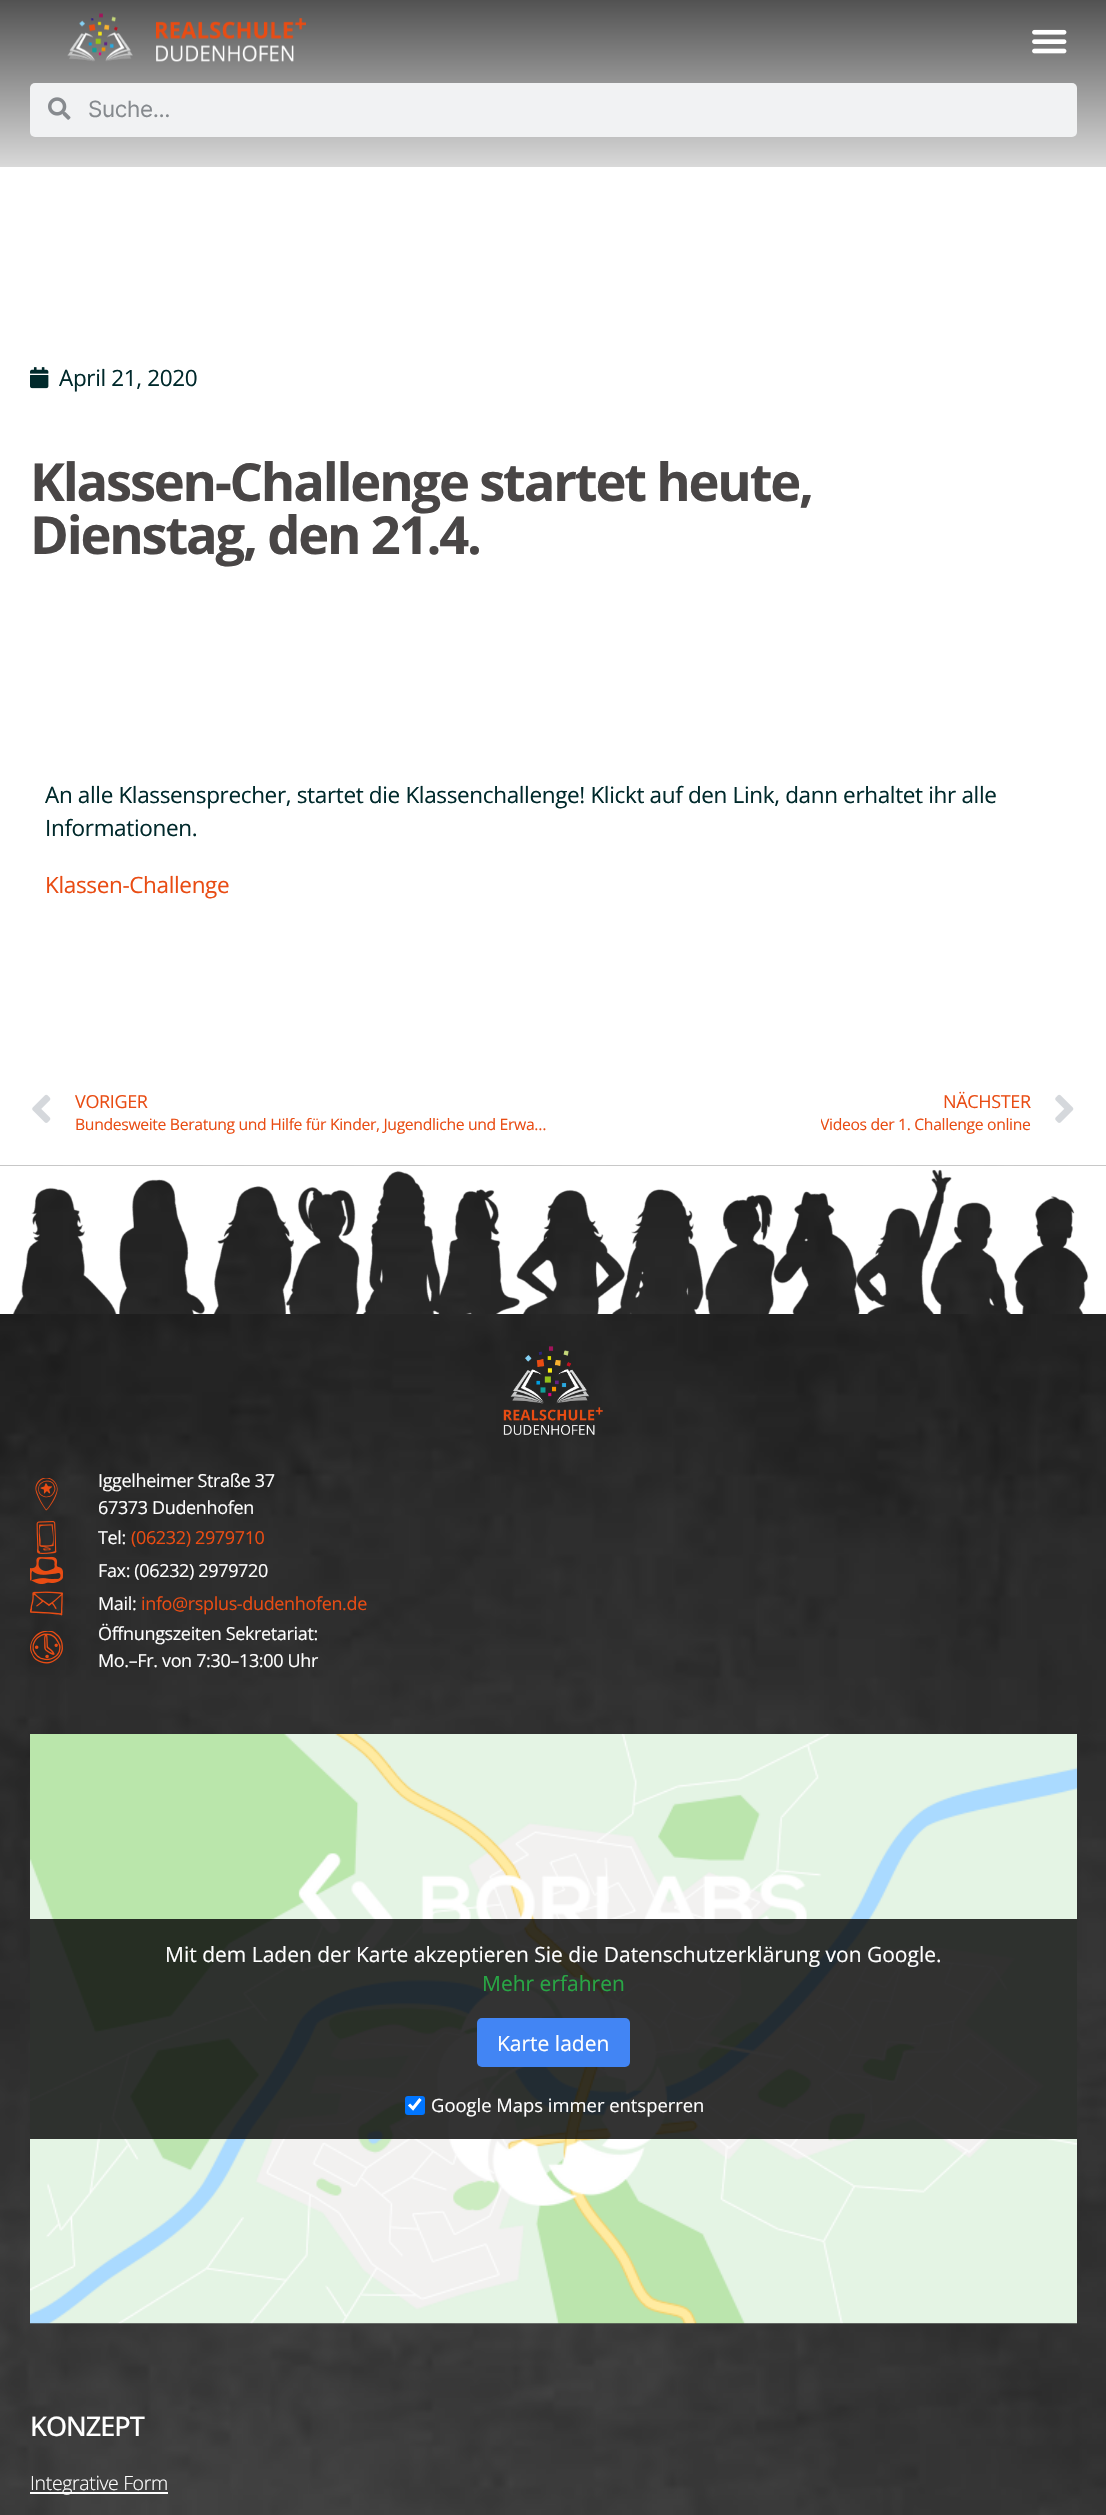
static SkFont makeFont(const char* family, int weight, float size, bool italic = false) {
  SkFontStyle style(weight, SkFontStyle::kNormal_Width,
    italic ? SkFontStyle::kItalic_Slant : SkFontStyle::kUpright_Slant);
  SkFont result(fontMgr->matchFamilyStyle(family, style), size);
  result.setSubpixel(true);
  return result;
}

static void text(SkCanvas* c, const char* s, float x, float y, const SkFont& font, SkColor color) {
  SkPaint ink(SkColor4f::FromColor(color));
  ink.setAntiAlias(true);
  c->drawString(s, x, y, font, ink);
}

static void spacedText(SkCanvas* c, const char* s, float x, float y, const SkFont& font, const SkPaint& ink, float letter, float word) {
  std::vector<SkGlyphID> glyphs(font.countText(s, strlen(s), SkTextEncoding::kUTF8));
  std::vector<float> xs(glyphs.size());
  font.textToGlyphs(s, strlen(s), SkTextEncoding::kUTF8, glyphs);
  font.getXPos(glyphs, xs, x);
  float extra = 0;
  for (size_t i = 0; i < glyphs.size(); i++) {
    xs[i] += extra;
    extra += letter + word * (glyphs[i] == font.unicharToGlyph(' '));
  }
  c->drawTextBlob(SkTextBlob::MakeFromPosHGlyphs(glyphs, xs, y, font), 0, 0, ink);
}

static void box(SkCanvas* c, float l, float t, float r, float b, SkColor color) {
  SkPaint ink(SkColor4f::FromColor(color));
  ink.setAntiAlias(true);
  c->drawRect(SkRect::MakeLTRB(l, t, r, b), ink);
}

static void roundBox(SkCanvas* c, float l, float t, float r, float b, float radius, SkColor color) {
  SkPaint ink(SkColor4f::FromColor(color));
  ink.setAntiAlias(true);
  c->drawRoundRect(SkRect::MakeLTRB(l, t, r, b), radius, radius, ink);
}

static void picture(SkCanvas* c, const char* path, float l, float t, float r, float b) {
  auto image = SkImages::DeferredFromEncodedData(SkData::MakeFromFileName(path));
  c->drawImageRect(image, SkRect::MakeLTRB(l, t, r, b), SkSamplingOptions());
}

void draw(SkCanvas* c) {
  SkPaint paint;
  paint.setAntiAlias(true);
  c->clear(0xffffffff);
  {
    const SkColor colors[] = {0xff525252, 0xffd9d9d9};
    const float stops[] = {0, 1};
    const SkPoint ends[] = {{554, 0}, {554, 167}};
    paint.setShader(SkGradientShader::MakeLinear(ends, colors, stops, 2, SkTileMode::kClamp));
    paint.setAlpha(255);
  }
  c->drawRect(SkRect::MakeLTRB(0, 0, 1106, 167), paint);
  picture(c, "img_01.png", 67, 13, 306, 62);
  picture(c, "img_02.png", 1032, 29, 1067, 54);
  roundBox(c, 30, 83, 1077, 137, 5, 0xfff1f2f3);
  picture(c, "img_03.png", 48, 97, 71, 120);
  SkFont face1 = makeFont("Inter", 400, 22.5f);
  paint.setShader(nullptr);
  paint.setColor(0xff868a8e);
  spacedText(c, "Suche...", 88, 117, face1, paint, -0.35f, 0);
  picture(c, "img_04.png", 30, 367, 49, 389);
  SkFont face2 = makeFont("Open Sans", 400, 22.5f);
  paint.setColor(0xff00292b);
  spacedText(c, "April 21, 2020", 59, 386, face2, paint, -0.35f, 0);
  SkFont face3 = makeFont("Open Sans", 700, 52.5f);
  paint.setColor(0xff494646);
  spacedText(c, "Klassen-Challenge startet heute,", 30, 501, face3, paint, -2.2f, 0);
  spacedText(c, "Dienstag, den 21.4.", 30, 554, face3, paint, -2.2f, 0);
  paint.setColor(0xff00292b);
  spacedText(c, "An alle Klassensprecher, startet die Klassenchallenge! Klickt auf den Link, dann erhaltet ihr alle", 45, 803, face2, paint, -0.35f, 0);
  spacedText(c, "Informationen.", 45, 836, face2, paint, -0.35f, 0);
  paint.setColor(0xffe94c13);
  spacedText(c, "Klassen-Challenge", 45, 893, face2, paint, -0.35f, 0);
  picture(c, "img_05.png", 32, 1094, 51, 1123);
  SkFont face4 = makeFont("Open Sans", 400, 18);
  spacedText(c, "VORIGER", 75, 1108, face4, paint, -0.35f, 0);
  SkFont face5 = makeFont("Open Sans", 400, 15.75f);
  spacedText(c, "Bundesweite Beratung und Hilfe für Kinder, Jugendliche und Erwa…", 75, 1130, face5, paint, -0.35f, 0);
  spacedText(c, "NÄCHSTER", 943, 1108, face4, paint, -0.35f, 0);
  c->save();
  c->clipRect(SkRect::MakeLTRB(821, 1115, 1031, 1136));
  spacedText(c, "Videos der 1. Challenge online", 820, 1130, face5, paint, -0.35f, 0);
  c->restore();
  picture(c, "img_06.png", 1055, 1094, 1074, 1123);
  picture(c, "img_07.png", 0, 1165, 1106, 1314);
  picture(c, "img_08.png", 0, 1165, 1106, 1314);
  picture(c, "img_09.png", 0, 1314, 1106, 2515);
  picture(c, "img_10.png", 503, 1346, 603, 1435);
  picture(c, "img_11.png", 35, 1478, 58, 1511);
  paint.setColor(0xffffffff);
  spacedText(c, "Iggelheimer Straße 37", 98, 1487, face4, paint, -0.35f, 0);
  spacedText(c, "67373 Dudenhofen", 98, 1514, face4, paint, -0.35f, 0);
  picture(c, "img_12.png", 36, 1521, 57, 1554);
  spacedText(c, "Tel:", 98, 1544, face4, paint, -0.35f, 0);
  paint.setColor(0xffe94c13);
  spacedText(c, "(06232) 2979710", 131, 1544, face4, paint, -0.35f, 0);
  picture(c, "img_13.png", 30, 1556, 63, 1584);
  paint.setColor(0xffffffff);
  spacedText(c, "Fax: (06232) 2979720", 98, 1577, face4, paint, -0.35f, 0);
  picture(c, "img_14.png", 30, 1591, 63, 1616);
  spacedText(c, "Mail:", 98, 1610, face4, paint, -0.35f, 0);
  paint.setColor(0xffe94c13);
  spacedText(c, "info@rsplus-dudenhofen.de", 141, 1610, face4, paint, -0.35f, 0);
  picture(c, "img_15.png", 30, 1631, 63, 1664);
  paint.setColor(0xffffffff);
  spacedText(c, "Öffnungszeiten Sekretariat:", 98, 1640, face4, paint, -0.35f, 0);
  spacedText(c, "Mo.–Fr. von 7:30–13:00 Uhr", 98, 1667, face4, paint, -0.35f, 0);
  picture(c, "img_16.png", 30, 1734, 1077, 2324);
  box(c, 30, 1919, 1077, 2139, 0xcc000000);
  SkFont face6 = makeFont("Open Sans", 400, 21);
  text(c, "Mit dem Laden der Karte akzeptieren Sie die Datenschutzerklärung von Google.", 165, 1962, face6, 0xffffffff);
  text(c, "Mehr erfahren", 482, 1991, face6, 0xff28a745);
  roundBox(c, 477, 2018, 630, 2067, 5, 0xff4285f4);
  text(c, "Karte laden", 497, 2051, face6, 0xffffffff);
  roundBox(c, 405, 2096, 425, 2115, 3, 0xff0075ff);
  paint.setStyle(SkPaint::kStroke_Style);
  paint.setStrokeWidth(3.1f);
  c->drawPath(SkPathBuilder().moveTo(409, 2104.5f).lineTo(413, 2108.5f).lineTo(420.5f, 2099).detach(), paint);
  SkFont face7 = makeFont("Open Sans", 400, 18.4f);
  text(c, "Google Maps immer entsperren", 431, 2112, face7, 0xffffffff);
  SkFont face8 = makeFont("Open Sans", 500, 27);
  paint.setStyle(SkPaint::kFill_Style);
  spacedText(c, "KONZEPT", 30, 2436, face8, paint, -1, 0);
  box(c, 30, 2492, 168, 2494, 0xffffffff);
  SkFont face9 = makeFont("Open Sans", 300, 19.5f);
  spacedText(c, "Integrative Form", 30, 2490, face9, paint, -0.35f, 0);
}
